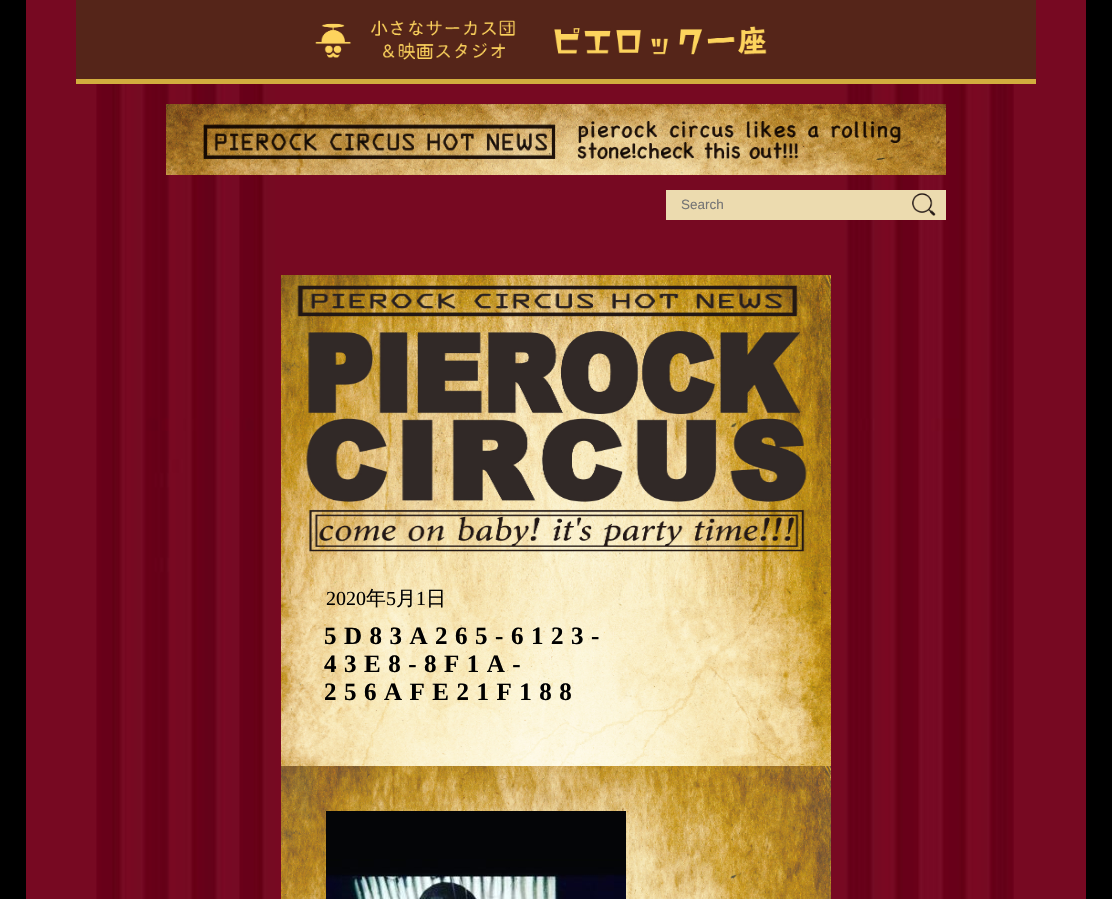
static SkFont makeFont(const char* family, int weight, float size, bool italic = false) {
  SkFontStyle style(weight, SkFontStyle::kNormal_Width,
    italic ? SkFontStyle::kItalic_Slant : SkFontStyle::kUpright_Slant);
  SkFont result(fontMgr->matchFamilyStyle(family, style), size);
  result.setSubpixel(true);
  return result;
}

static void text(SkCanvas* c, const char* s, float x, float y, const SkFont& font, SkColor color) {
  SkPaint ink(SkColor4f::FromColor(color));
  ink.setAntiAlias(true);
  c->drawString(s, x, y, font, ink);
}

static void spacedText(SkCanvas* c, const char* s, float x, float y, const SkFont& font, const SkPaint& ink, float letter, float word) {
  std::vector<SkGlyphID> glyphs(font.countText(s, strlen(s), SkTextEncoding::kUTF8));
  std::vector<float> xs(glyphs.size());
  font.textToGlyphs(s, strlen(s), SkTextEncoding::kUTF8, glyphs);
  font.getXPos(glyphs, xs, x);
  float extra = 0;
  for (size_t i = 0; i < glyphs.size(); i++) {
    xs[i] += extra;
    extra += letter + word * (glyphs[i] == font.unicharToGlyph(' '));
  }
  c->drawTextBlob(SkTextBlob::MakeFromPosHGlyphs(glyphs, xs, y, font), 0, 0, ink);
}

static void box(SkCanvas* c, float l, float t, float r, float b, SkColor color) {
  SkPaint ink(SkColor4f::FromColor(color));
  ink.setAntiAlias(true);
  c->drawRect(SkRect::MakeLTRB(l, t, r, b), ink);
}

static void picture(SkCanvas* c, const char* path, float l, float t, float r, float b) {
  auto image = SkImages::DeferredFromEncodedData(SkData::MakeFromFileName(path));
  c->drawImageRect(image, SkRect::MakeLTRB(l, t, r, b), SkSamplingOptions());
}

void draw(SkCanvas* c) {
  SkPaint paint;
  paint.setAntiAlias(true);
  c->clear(0xff000000);
  box(c, 26, 0, 1086, 899, 0xff770922);
  box(c, 76, 79, 1036, 84, 0xffd2ad3e);
  picture(c, "img_01.png", 76, 0, 1036, 79);
  picture(c, "img_02.png", 96, 84, 1014, 899);
  picture(c, "img_03.png", 166, 104, 946, 175);
  box(c, 666, 190, 946, 220, 0xffecdbaf);
  SkFont face1 = makeFont("Liberation Sans", 400, 13.5f);
  text(c, "Search", 681, 209, face1, 0xff757575);
  picture(c, "img_04.png", 912, 193, 936, 216);
  picture(c, "img_05.png", 281, 275, 831, 766);
  SkFont face2 = makeFont("Liberation Serif", 400, 20);
  text(c, "2020", 326, 605, face2, 0xff000000);
  SkFont face3 = makeFont("WenQuanYi Zen Hei", 500, 20);
  text(c, "年", 366, 605, face3, 0xff000000);
  text(c, "5", 386, 605, face2, 0xff000000);
  text(c, "月", 396, 605, face3, 0xff000000);
  text(c, "1", 416, 605, face2, 0xff000000);
  text(c, "日", 426, 605, face3, 0xff000000);
  SkFont face4 = makeFont("Liberation Serif", 700, 25);
  paint.setColor(0xff000000);
  spacedText(c, "5D83A265-6123-", 324, 644, face4, paint, 7.5f, 0);
  spacedText(c, "43E8-8F1A-", 324, 672, face4, paint, 7.5f, 0);
  spacedText(c, "256AFE21F188", 324, 700, face4, paint, 7.5f, 0);
  picture(c, "img_06.png", 281, 766, 831, 899);
  picture(c, "img_07.png", 326, 811, 626, 899);
}
